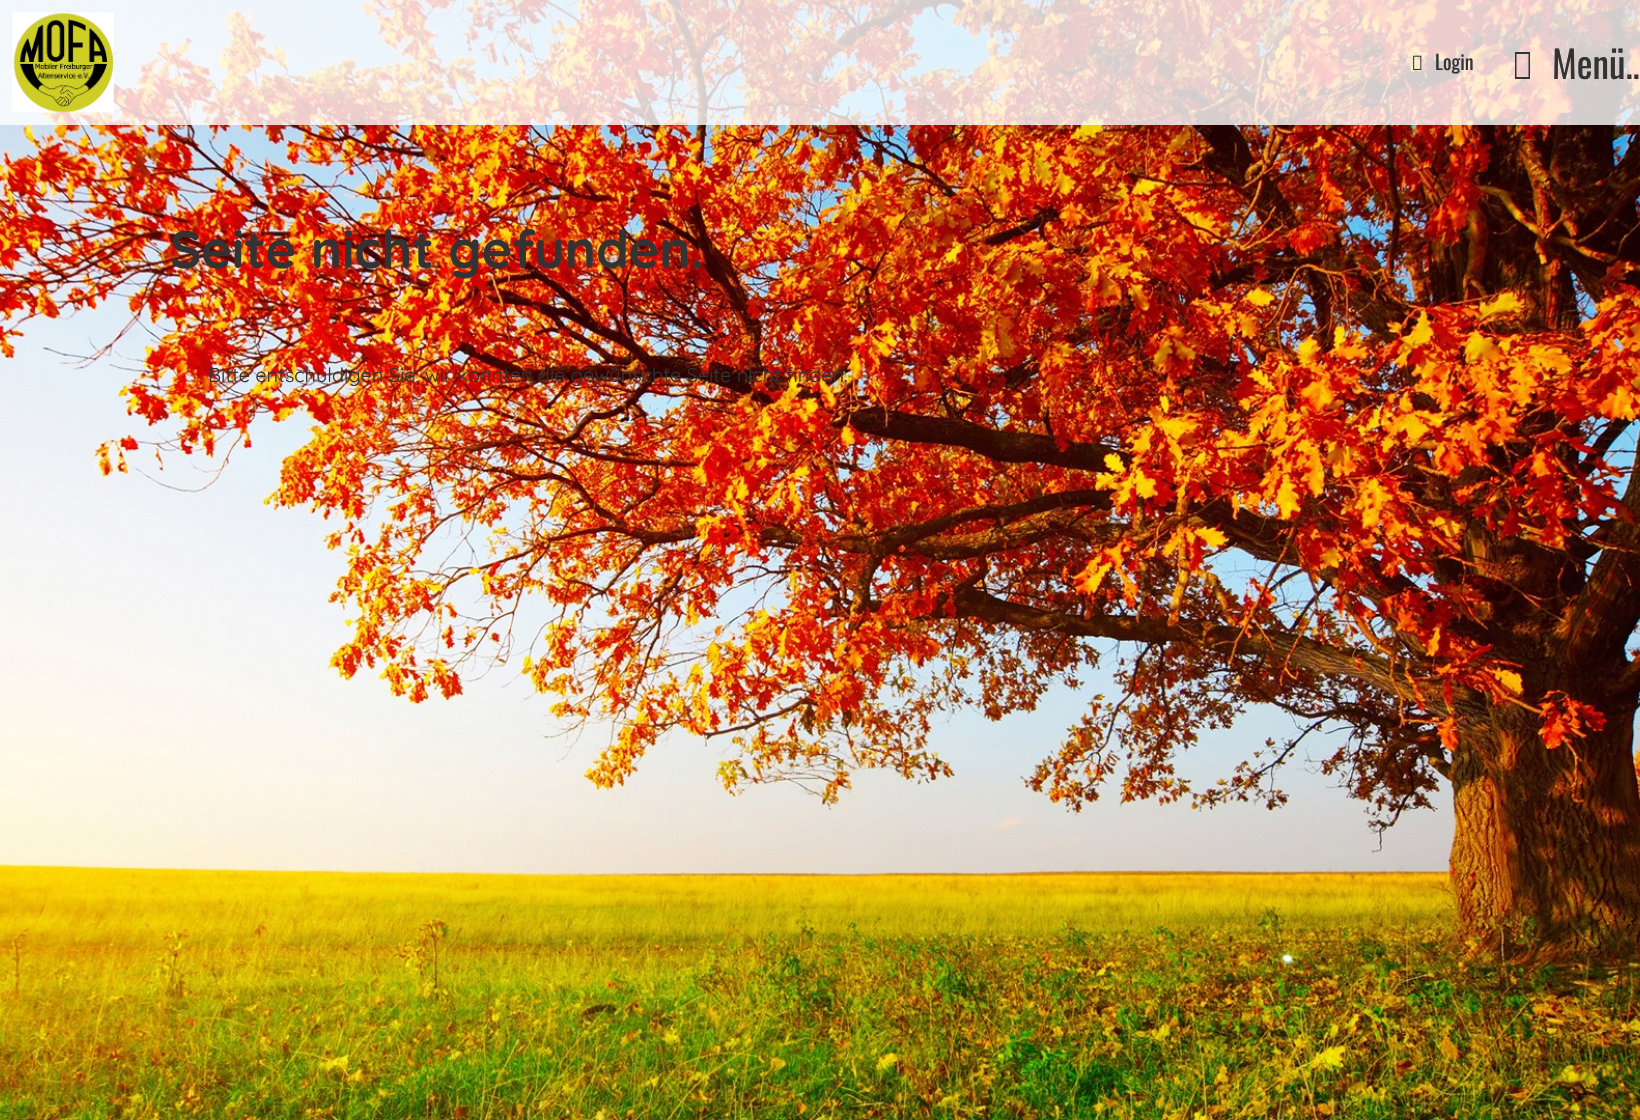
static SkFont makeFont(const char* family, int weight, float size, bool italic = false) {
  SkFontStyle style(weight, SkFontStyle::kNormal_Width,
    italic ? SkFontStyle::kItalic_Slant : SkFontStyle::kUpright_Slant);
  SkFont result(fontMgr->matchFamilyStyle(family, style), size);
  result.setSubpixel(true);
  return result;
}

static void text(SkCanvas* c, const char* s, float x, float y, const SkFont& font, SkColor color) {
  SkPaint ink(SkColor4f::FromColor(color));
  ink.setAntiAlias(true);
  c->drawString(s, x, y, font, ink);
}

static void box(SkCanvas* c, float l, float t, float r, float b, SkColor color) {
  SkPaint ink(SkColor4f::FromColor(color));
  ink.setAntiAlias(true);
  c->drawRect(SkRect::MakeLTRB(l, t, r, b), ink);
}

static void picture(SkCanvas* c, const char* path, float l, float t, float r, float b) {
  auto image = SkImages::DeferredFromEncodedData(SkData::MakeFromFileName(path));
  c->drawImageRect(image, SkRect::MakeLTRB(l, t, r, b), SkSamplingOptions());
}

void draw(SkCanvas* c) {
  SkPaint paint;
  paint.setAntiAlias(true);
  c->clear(0xffffffff);
  picture(c, "img_01.png", 0, 0, 1640, 1120);
  box(c, 0, 0, 1640, 125, 0xccffffff);
  picture(c, "img_02.png", 12, 12, 114, 113);
  picture(c, "img_03.png", 1413, 55, 1422, 70);
  SkFont face1 = makeFont("Oswald", 400, 20);
  text(c, "Login", 1435, 70, face1, 0xff333333);
  paint.setColor(0xff333333);
  c->drawPath(SkPathBuilder().moveTo(1515, 79).lineTo(1515, 52).lineTo(1530, 52).lineTo(1530, 79).close().moveTo(1516.5f, 77).lineTo(1528.5f, 77).lineTo(1528.5f, 54).lineTo(1516.5f, 54).close().detach(), paint);
  SkFont face2 = makeFont("Oswald", 400, 37.5f);
  text(c, "Menü..", 1552, 79, face2, 0xff333333);
  SkFont face3 = makeFont("Quicksand", 300, 52.5f);
  text(c, "Seite nicht gefunden.", 170, 268, face3, 0xff333333);
  SkFont face4 = makeFont("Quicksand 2", 300, 20);
  text(c, "Bitte entschuldigen Sie, wir konnten die gewünschte Seite nicht finden.", 208, 382, face4, 0xff333333);
}
